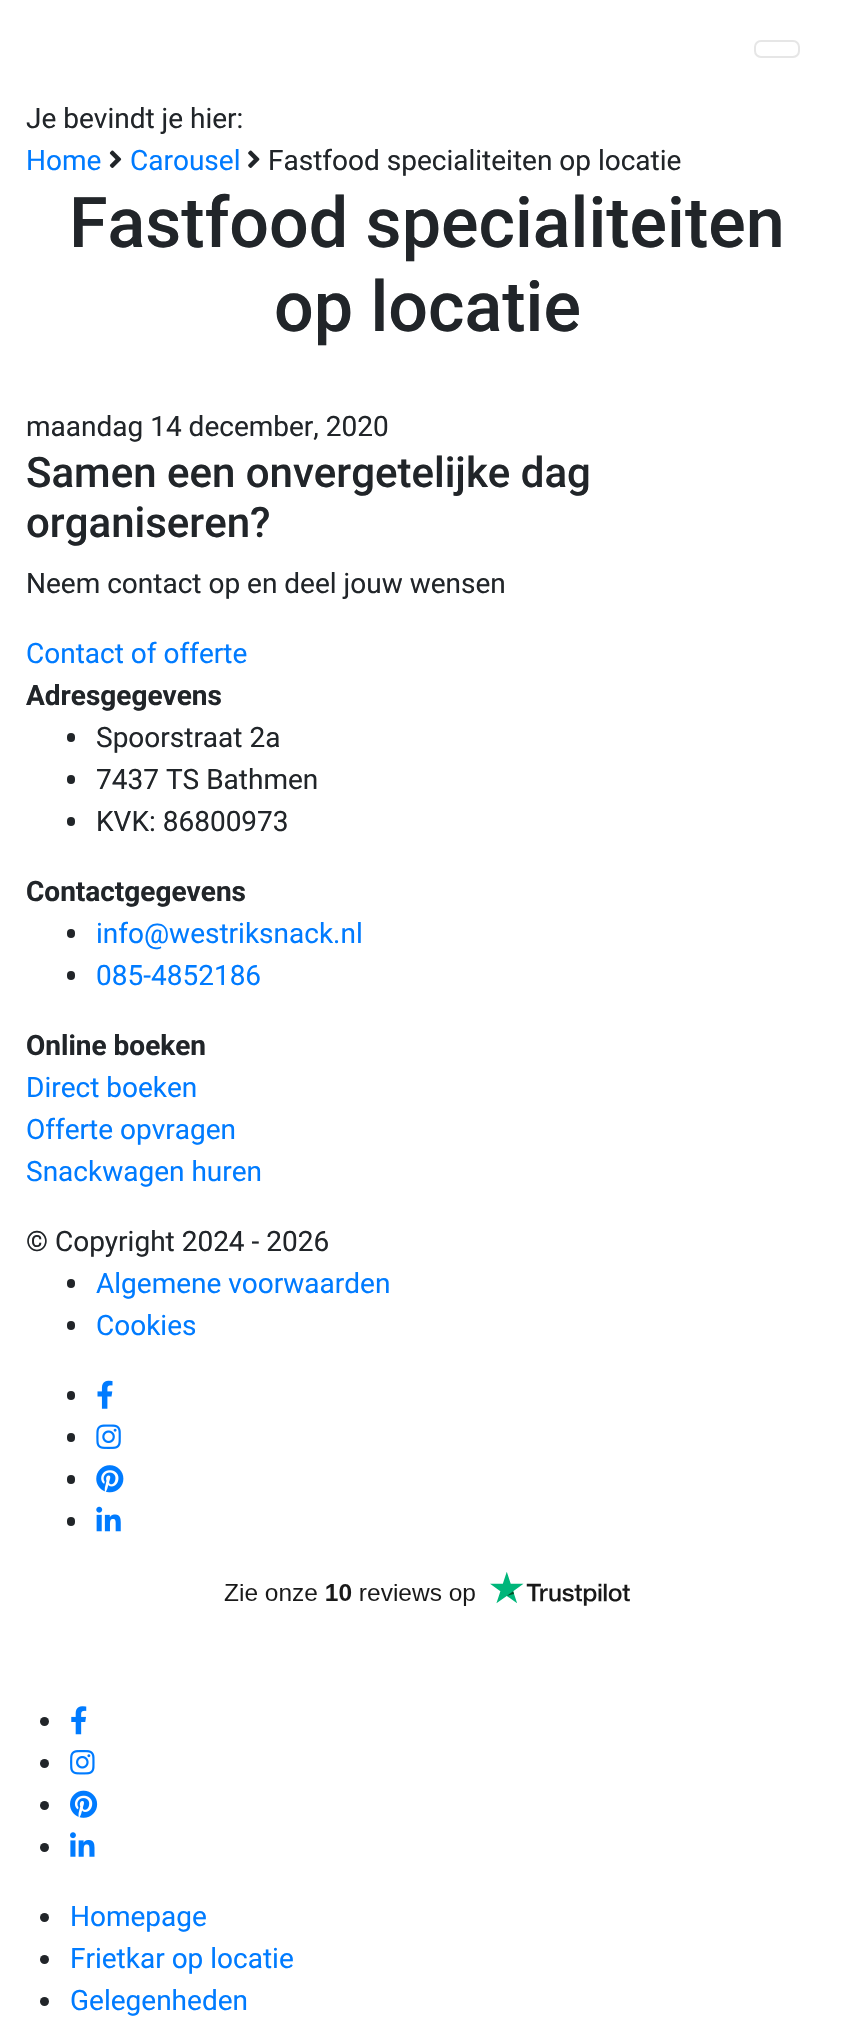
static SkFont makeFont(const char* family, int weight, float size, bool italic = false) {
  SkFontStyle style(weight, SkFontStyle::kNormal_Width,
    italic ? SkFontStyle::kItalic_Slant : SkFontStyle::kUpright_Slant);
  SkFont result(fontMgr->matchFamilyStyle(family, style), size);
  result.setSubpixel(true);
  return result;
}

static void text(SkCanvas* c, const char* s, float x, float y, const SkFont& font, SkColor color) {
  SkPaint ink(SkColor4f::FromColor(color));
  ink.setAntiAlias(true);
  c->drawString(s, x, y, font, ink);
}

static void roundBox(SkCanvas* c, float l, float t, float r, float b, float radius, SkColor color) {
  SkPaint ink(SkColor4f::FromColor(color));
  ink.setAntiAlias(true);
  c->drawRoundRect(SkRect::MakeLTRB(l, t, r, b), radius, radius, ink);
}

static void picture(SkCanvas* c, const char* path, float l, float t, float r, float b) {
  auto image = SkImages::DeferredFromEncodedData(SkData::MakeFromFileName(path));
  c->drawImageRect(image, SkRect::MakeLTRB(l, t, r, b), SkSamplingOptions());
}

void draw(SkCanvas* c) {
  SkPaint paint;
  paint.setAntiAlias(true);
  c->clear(0xffffffff);
  paint.setStyle(SkPaint::kStroke_Style);
  paint.setStrokeWidth(2);
  paint.setColor(0xffe6e6e6);
  c->drawRoundRect(SkRect::MakeLTRB(755, 41, 799, 57), 6, 6, paint);
  SkFont face1 = makeFont("Roboto", 400, 28);
  text(c, "Je bevindt je hier:", 26, 128, face1, 0xff212529);
  text(c, "Home", 26, 170, face1, 0xff007bff);
  picture(c, "img_01.png", 109, 150, 122, 168);
  text(c, "Carousel", 130, 170, face1, 0xff007bff);
  picture(c, "img_02.png", 248, 150, 260, 168);
  text(c, "Fastfood specialiteiten op locatie", 268, 170, face1, 0xff212529);
  SkFont face2 = makeFont("Roboto", 500, 70);
  text(c, "Fastfood specialiteiten", 69, 247, face2, 0xff212529);
  text(c, "op locatie", 274, 331, face2, 0xff212529);
  text(c, "maandag 14 december, 2020", 26, 436, face1, 0xff212529);
  SkFont face3 = makeFont("Roboto", 500, 42);
  text(c, "Samen een onvergetelijke dag", 26, 487, face3, 0xff212529);
  text(c, "organiseren?", 26, 537, face3, 0xff212529);
  text(c, "Neem contact op en deel jouw wensen", 26, 593, face1, 0xff212529);
  text(c, "Contact of offerte", 26, 663, face1, 0xff007bff);
  SkFont face4 = makeFont("Roboto", 700, 28);
  text(c, "Adresgegevens", 26, 705, face4, 0xff212529);
  roundBox(c, 67, 733, 75, 742, 4, 0xff212529);
  text(c, "Spoorstraat 2a", 96, 747, face1, 0xff212529);
  roundBox(c, 67, 775, 75, 784, 4, 0xff212529);
  text(c, "7437 TS Bathmen", 96, 789, face1, 0xff212529);
  roundBox(c, 67, 817, 75, 826, 4, 0xff212529);
  text(c, "KVK: 86800973", 96, 831, face1, 0xff212529);
  text(c, "Contactgegevens", 26, 901, face4, 0xff212529);
  roundBox(c, 67, 929, 75, 938, 4, 0xff212529);
  text(c, "info@westriksnack.nl", 96, 943, face1, 0xff007bff);
  roundBox(c, 67, 971, 75, 980, 4, 0xff212529);
  text(c, "085-4852186", 96, 985, face1, 0xff007bff);
  text(c, "Online boeken", 26, 1055, face4, 0xff212529);
  text(c, "Direct boeken", 26, 1097, face1, 0xff007bff);
  text(c, "Offerte opvragen", 26, 1139, face1, 0xff007bff);
  text(c, "Snackwagen huren", 26, 1181, face1, 0xff007bff);
  text(c, "© Copyright 2024 - 2026", 26, 1251, face1, 0xff212529);
  roundBox(c, 67, 1279, 75, 1288, 4, 0xff212529);
  text(c, "Algemene voorwaarden", 96, 1293, face1, 0xff007bff);
  roundBox(c, 67, 1321, 75, 1330, 4, 0xff212529);
  text(c, "Cookies", 96, 1335, face1, 0xff007bff);
  roundBox(c, 67, 1391, 75, 1400, 4, 0xff212529);
  picture(c, "img_03.png", 97, 1380, 113, 1409);
  roundBox(c, 67, 1433, 75, 1442, 4, 0xff212529);
  picture(c, "img_04.png", 96, 1424, 121, 1449);
  roundBox(c, 67, 1475, 75, 1484, 4, 0xff212529);
  picture(c, "img_05.png", 96, 1465, 124, 1493);
  roundBox(c, 67, 1517, 75, 1526, 4, 0xff212529);
  picture(c, "img_06.png", 96, 1506, 121, 1532);
  picture(c, "img_07.png", 224, 1572, 630, 1606);
  paint.setStyle(SkPaint::kFill_Style);
  paint.setColor(0xff212529);
  c->drawCircle(44.5f, 1721.5f, 4.5f, paint);
  picture(c, "img_08.png", 71, 1706, 87, 1735);
  c->drawCircle(44.5f, 1763.5f, 4.5f, paint);
  picture(c, "img_09.png", 70, 1750, 95, 1775);
  c->drawCircle(44.5f, 1805.5f, 4.5f, paint);
  picture(c, "img_10.png", 70, 1790, 98, 1818);
  c->drawCircle(44.5f, 1847.5f, 4.5f, paint);
  picture(c, "img_11.png", 70, 1832, 95, 1857);
  c->drawCircle(44.5f, 1917.5f, 4.5f, paint);
  text(c, "Homepage", 70, 1926, face1, 0xff007bff);
  c->drawCircle(44.5f, 1959.5f, 4.5f, paint);
  text(c, "Frietkar op locatie", 70, 1968, face1, 0xff007bff);
  c->drawCircle(44.5f, 2001.5f, 4.5f, paint);
  text(c, "Gelegenheden", 70, 2010, face1, 0xff007bff);
}
